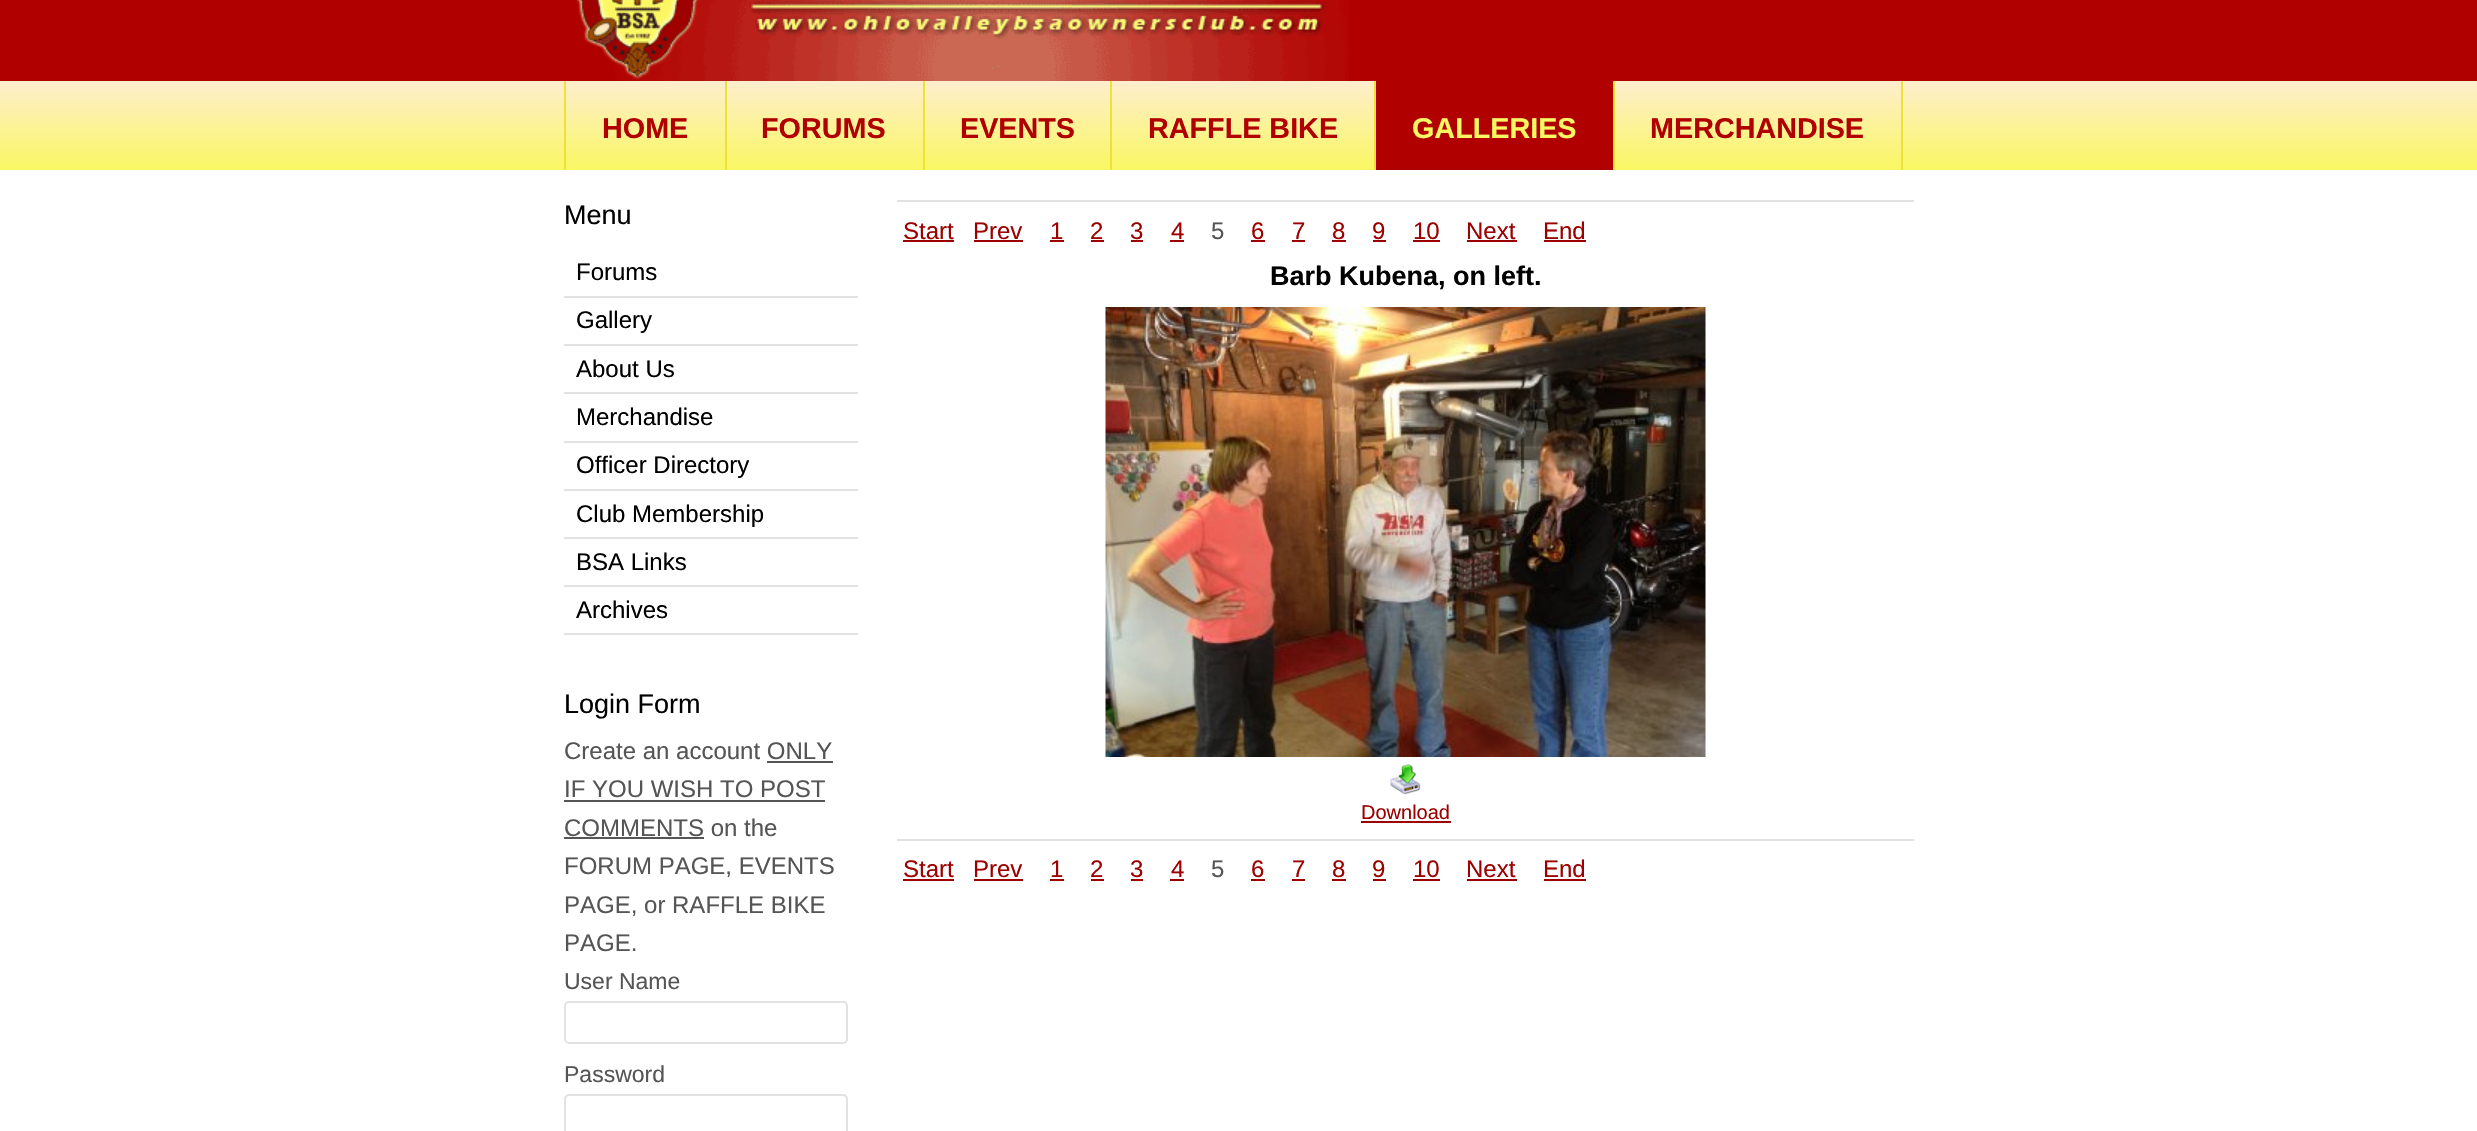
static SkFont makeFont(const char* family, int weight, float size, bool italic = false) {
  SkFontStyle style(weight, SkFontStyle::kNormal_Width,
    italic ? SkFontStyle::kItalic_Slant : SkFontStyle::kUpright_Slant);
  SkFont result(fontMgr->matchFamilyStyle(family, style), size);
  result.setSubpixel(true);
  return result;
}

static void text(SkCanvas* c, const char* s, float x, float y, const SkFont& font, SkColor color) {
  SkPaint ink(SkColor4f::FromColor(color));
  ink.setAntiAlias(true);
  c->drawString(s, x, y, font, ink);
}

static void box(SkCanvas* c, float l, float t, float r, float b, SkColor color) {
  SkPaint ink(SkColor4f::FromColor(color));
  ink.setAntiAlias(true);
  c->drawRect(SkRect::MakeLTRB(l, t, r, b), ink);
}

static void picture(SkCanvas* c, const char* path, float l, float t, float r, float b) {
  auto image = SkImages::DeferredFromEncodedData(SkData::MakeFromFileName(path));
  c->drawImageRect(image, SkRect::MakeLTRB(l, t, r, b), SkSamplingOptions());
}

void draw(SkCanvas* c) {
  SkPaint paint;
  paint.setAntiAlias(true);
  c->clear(0xffb00000);
  picture(c, "img_01.png", 576, 0, 1349, 81);
  {
    const SkColor colors[] = {0xffffeece, 0xfff9f762};
    const float stops[] = {0, 1};
    const SkPoint ends[] = {{0, 81}, {0, 170}};
    paint.setShader(SkGradientShader::MakeLinear(ends, colors, stops, 2, SkTileMode::kClamp));
    paint.setAlpha(255);
  }
  c->drawRect(SkRect::MakeLTRB(0, 81, 2477, 170), paint);
  box(c, 725, 81, 727, 170, 0xffede238);
  box(c, 564, 81, 566, 170, 0xffede238);
  SkFont face1 = makeFont("Liberation Sans", 700, 28.75f);
  text(c, "HOME", 602, 138, face1, 0xffb00000);
  box(c, 923, 81, 925, 170, 0xffede238);
  text(c, "FORUMS", 761, 138, face1, 0xffb00000);
  box(c, 1110, 81, 1112, 170, 0xffede238);
  text(c, "EVENTS", 960, 138, face1, 0xffb00000);
  box(c, 1374, 81, 1376, 170, 0xffede238);
  text(c, "RAFFLE BIKE", 1148, 138, face1, 0xffb00000);
  box(c, 1613, 81, 1615, 170, 0xffede238);
  box(c, 1376, 81, 1613, 170, 0xffb00000);
  text(c, "GALLERIES", 1412, 138, face1, 0xfff9f762);
  box(c, 1901, 81, 1903, 170, 0xffede238);
  text(c, "MERCHANDISE", 1650, 138, face1, 0xffb00000);
  box(c, 0, 170, 2477, 1131, 0xffffffff);
  SkFont face2 = makeFont("Liberation Sans", 400, 27);
  text(c, "Menu", 564, 224, face2, 0xff000000);
  box(c, 564, 296, 858, 298, 0xffe2e2e2);
  SkFont face3 = makeFont("Liberation Sans", 400, 24);
  text(c, "Forums", 576, 280, face3, 0xff000000);
  box(c, 564, 344, 858, 346, 0xffe2e2e2);
  text(c, "Gallery", 576, 328, face3, 0xff000000);
  box(c, 564, 392, 858, 394, 0xffe2e2e2);
  text(c, "About Us", 576, 377, face3, 0xff000000);
  box(c, 564, 441, 858, 443, 0xffe2e2e2);
  text(c, "Merchandise", 576, 425, face3, 0xff000000);
  box(c, 564, 489, 858, 491, 0xffe2e2e2);
  text(c, "Officer Directory", 576, 473, face3, 0xff000000);
  box(c, 564, 537, 858, 539, 0xffe2e2e2);
  text(c, "Club Membership", 576, 522, face3, 0xff000000);
  box(c, 564, 585, 858, 587, 0xffe2e2e2);
  text(c, "BSA Links", 576, 570, face3, 0xff000000);
  box(c, 564, 633, 858, 635, 0xffe2e2e2);
  text(c, "Archives", 576, 618, face3, 0xff000000);
  text(c, "Login Form", 564, 713, face2, 0xff000000);
  text(c, "Create an account ONLY", 564, 759, face3, 0xff555555);
  text(c, "IF YOU WISH TO POST", 564, 797, face3, 0xff555555);
  box(c, 767, 761, 833, 763, 0xff555555);
  box(c, 564, 800, 825, 802, 0xff555555);
  text(c, "COMMENTS on the", 564, 836, face3, 0xff555555);
  box(c, 564, 837, 704, 839, 0xff555555);
  text(c, "FORUM PAGE, EVENTS", 564, 874, face3, 0xff555555);
  text(c, "PAGE, or RAFFLE BIKE", 564, 913, face3, 0xff555555);
  text(c, "PAGE.", 564, 951, face3, 0xff555555);
  SkFont face4 = makeFont("Liberation Sans", 400, 23);
  text(c, "User Name", 564, 989, face4, 0xff555555);
  paint.setStyle(SkPaint::kStroke_Style);
  paint.setStrokeWidth(2);
  paint.setShader(nullptr);
  paint.setColor(0xffe2e2e2);
  c->drawRoundRect(SkRect::MakeLTRB(565, 1002, 847, 1043), 4, 4, paint);
  text(c, "Password", 564, 1082, face4, 0xff555555);
  c->drawRoundRect(SkRect::MakeLTRB(565, 1095, 847, 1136), 4, 4, paint);
  box(c, 897, 200, 1914, 202, 0xffe2e2e2);
  text(c, "Start", 903, 239, face3, 0xff9c0000);
  box(c, 903, 240, 954, 242, 0xff9c0000);
  text(c, "Prev", 973, 239, face3, 0xff9c0000);
  box(c, 974, 240, 1023, 242, 0xff9c0000);
  text(c, "1", 1050, 239, face3, 0xff9c0000);
  box(c, 1050, 240, 1064, 242, 0xff9c0000);
  text(c, "2", 1090, 239, face3, 0xff9c0000);
  box(c, 1091, 240, 1104, 242, 0xff9c0000);
  text(c, "3", 1130, 239, face3, 0xff9c0000);
  box(c, 1131, 240, 1143, 242, 0xff9c0000);
  text(c, "4", 1171, 239, face3, 0xff9c0000);
  box(c, 1170, 240, 1184, 242, 0xff9c0000);
  text(c, "5", 1211, 239, face3, 0xff555555);
  text(c, "6", 1251, 239, face3, 0xff9c0000);
  box(c, 1251, 240, 1265, 242, 0xff9c0000);
  text(c, "7", 1292, 239, face3, 0xff9c0000);
  box(c, 1292, 240, 1305, 242, 0xff9c0000);
  text(c, "8", 1332, 239, face3, 0xff9c0000);
  box(c, 1332, 240, 1346, 242, 0xff9c0000);
  text(c, "9", 1372, 239, face3, 0xff9c0000);
  box(c, 1373, 240, 1386, 242, 0xff9c0000);
  text(c, "10", 1413, 239, face3, 0xff9c0000);
  box(c, 1413, 240, 1440, 242, 0xff9c0000);
  text(c, "Next", 1466, 239, face3, 0xff9c0000);
  box(c, 1467, 240, 1517, 242, 0xff9c0000);
  text(c, "End", 1543, 239, face3, 0xff9c0000);
  box(c, 1544, 240, 1586, 242, 0xff9c0000);
  SkFont face5 = makeFont("Liberation Sans", 700, 27);
  text(c, "Barb Kubena, on left.", 1270, 285, face5, 0xff000000);
  picture(c, "img_02.png", 1105, 307, 1706, 757);
  picture(c, "img_03.png", 1390, 764, 1421, 795);
  SkFont face6 = makeFont("Liberation Sans", 400, 20);
  text(c, "Download", 1361, 819, face6, 0xff9c0000);
  box(c, 1361, 821, 1451, 823, 0xff9c0000);
  box(c, 897, 839, 1914, 841, 0xffe2e2e2);
  text(c, "Start", 903, 877, face3, 0xff9c0000);
  box(c, 903, 879, 954, 881, 0xff9c0000);
  text(c, "Prev", 973, 877, face3, 0xff9c0000);
  box(c, 974, 879, 1023, 881, 0xff9c0000);
  text(c, "1", 1050, 877, face3, 0xff9c0000);
  box(c, 1050, 879, 1064, 881, 0xff9c0000);
  text(c, "2", 1090, 877, face3, 0xff9c0000);
  box(c, 1091, 879, 1104, 881, 0xff9c0000);
  text(c, "3", 1130, 877, face3, 0xff9c0000);
  box(c, 1131, 879, 1143, 881, 0xff9c0000);
  text(c, "4", 1171, 877, face3, 0xff9c0000);
  box(c, 1170, 879, 1184, 881, 0xff9c0000);
  text(c, "5", 1211, 877, face3, 0xff555555);
  text(c, "6", 1251, 877, face3, 0xff9c0000);
  box(c, 1251, 879, 1265, 881, 0xff9c0000);
  text(c, "7", 1292, 877, face3, 0xff9c0000);
  box(c, 1292, 879, 1305, 881, 0xff9c0000);
  text(c, "8", 1332, 877, face3, 0xff9c0000);
  box(c, 1332, 879, 1346, 881, 0xff9c0000);
  text(c, "9", 1372, 877, face3, 0xff9c0000);
  box(c, 1373, 879, 1386, 881, 0xff9c0000);
  text(c, "10", 1413, 877, face3, 0xff9c0000);
  box(c, 1413, 879, 1440, 881, 0xff9c0000);
  text(c, "Next", 1466, 877, face3, 0xff9c0000);
  box(c, 1467, 879, 1517, 881, 0xff9c0000);
  text(c, "End", 1543, 877, face3, 0xff9c0000);
  box(c, 1544, 879, 1586, 881, 0xff9c0000);
}
